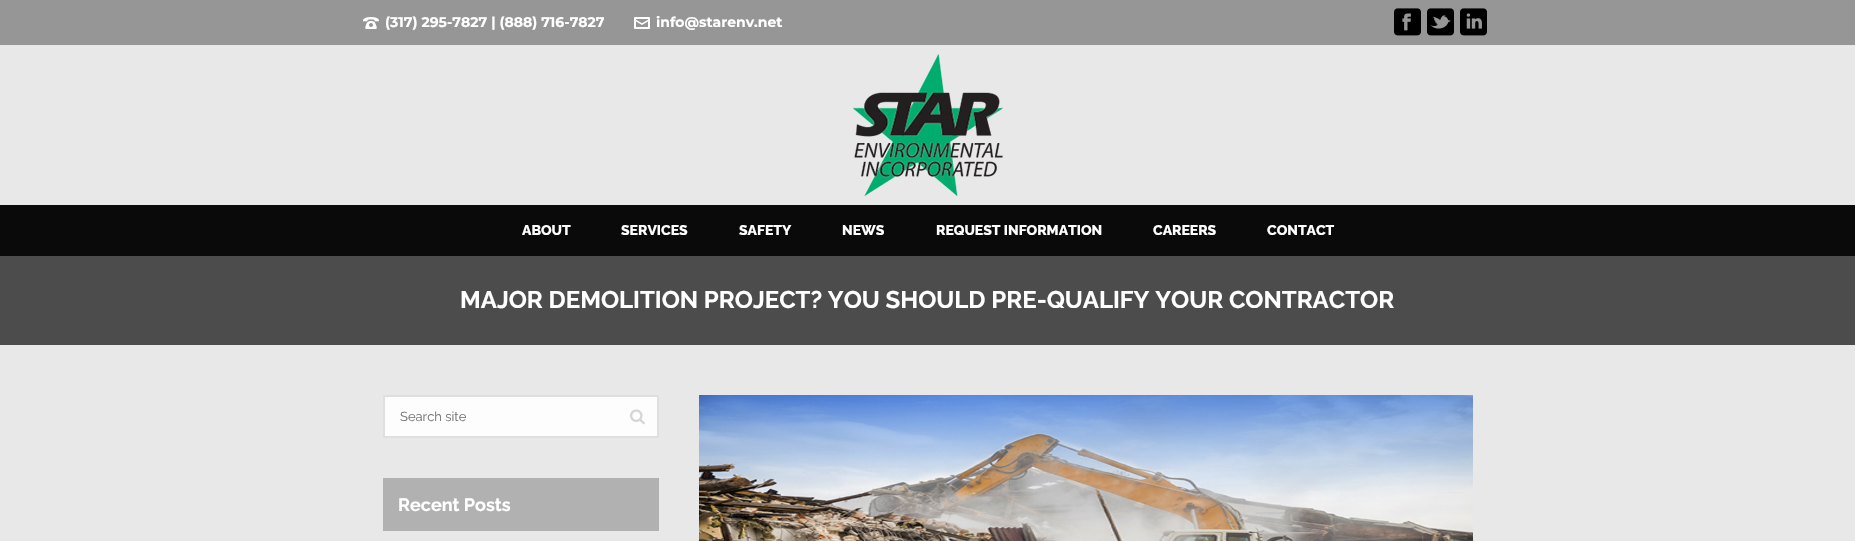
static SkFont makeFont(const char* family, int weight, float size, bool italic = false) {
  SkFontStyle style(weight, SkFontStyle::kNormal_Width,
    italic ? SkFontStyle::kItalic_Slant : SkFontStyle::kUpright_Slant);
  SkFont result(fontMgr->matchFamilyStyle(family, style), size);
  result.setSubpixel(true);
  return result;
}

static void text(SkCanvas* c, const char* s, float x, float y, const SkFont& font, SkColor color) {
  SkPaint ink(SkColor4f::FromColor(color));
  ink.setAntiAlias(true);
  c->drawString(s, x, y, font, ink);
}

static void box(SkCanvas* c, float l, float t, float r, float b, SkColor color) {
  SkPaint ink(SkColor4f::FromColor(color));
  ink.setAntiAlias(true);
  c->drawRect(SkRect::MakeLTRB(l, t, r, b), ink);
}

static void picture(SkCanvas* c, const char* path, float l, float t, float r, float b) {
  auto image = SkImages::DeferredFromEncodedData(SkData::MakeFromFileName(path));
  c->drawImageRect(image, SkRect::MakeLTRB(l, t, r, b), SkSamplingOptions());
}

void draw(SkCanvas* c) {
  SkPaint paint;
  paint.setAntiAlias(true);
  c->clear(0xffe8e8e8);
  box(c, 0, 256, 1855, 345, 0xff4c4c4c);
  box(c, 0, 0, 1855, 45, 0xff969696);
  picture(c, "img_01.png", 363, 17, 379, 29);
  SkFont face1 = makeFont("Montserrat", 700, 14);
  text(c, "(317) 295-7827 | (888) 716-7827", 385, 27, face1, 0xffffffff);
  picture(c, "img_02.png", 634, 17, 650, 29);
  text(c, "info@starenv.net", 656, 27, face1, 0xffffffff);
  picture(c, "img_03.png", 1394, 8, 1421, 36);
  picture(c, "img_04.png", 1427, 8, 1454, 36);
  picture(c, "img_05.png", 1460, 8, 1487, 36);
  picture(c, "img_06.png", 853, 54, 1003, 196);
  box(c, 0, 205, 1855, 256, 0xff0a0a0a);
  SkFont face2 = makeFont("Raleway", 800, 14);
  text(c, "ABOUT", 522, 235, face2, 0xffffffff);
  text(c, "SERVICES", 621, 235, face2, 0xffffffff);
  text(c, "SAFETY", 739, 235, face2, 0xffffffff);
  text(c, "NEWS", 842, 235, face2, 0xffffffff);
  text(c, "REQUEST INFORMATION", 936, 235, face2, 0xffffffff);
  text(c, "CAREERS", 1153, 235, face2, 0xffffffff);
  text(c, "CONTACT", 1267, 235, face2, 0xffffffff);
  SkFont face3 = makeFont("Raleway", 700, 24);
  text(c, "MAJOR DEMOLITION PROJECT? YOU SHOULD PRE-QUALIFY YOUR CONTRACTOR", 460, 308, face3, 0xffffffff);
  paint.setColor(0xfffdfdfd);
  c->drawRect(SkRect::MakeLTRB(384, 396, 658, 437), paint);
  paint.setStyle(SkPaint::kStroke_Style);
  paint.setStrokeWidth(2);
  paint.setColor(0xffdfdfdf);
  c->drawRect(SkRect::MakeLTRB(384, 396, 658, 437), paint);
  SkFont face4 = makeFont("Raleway", 400, 13);
  text(c, "Search site", 400, 421, face4, 0xff757575);
  picture(c, "img_07.png", 630, 409, 645, 425);
  box(c, 383, 478, 659, 531, 0xffb1b1b2);
  SkFont face5 = makeFont("Raleway", 700, 18);
  text(c, "Recent Posts", 398, 511, face5, 0xffffffff);
  picture(c, "img_08.png", 699, 395, 1473, 541);
}
